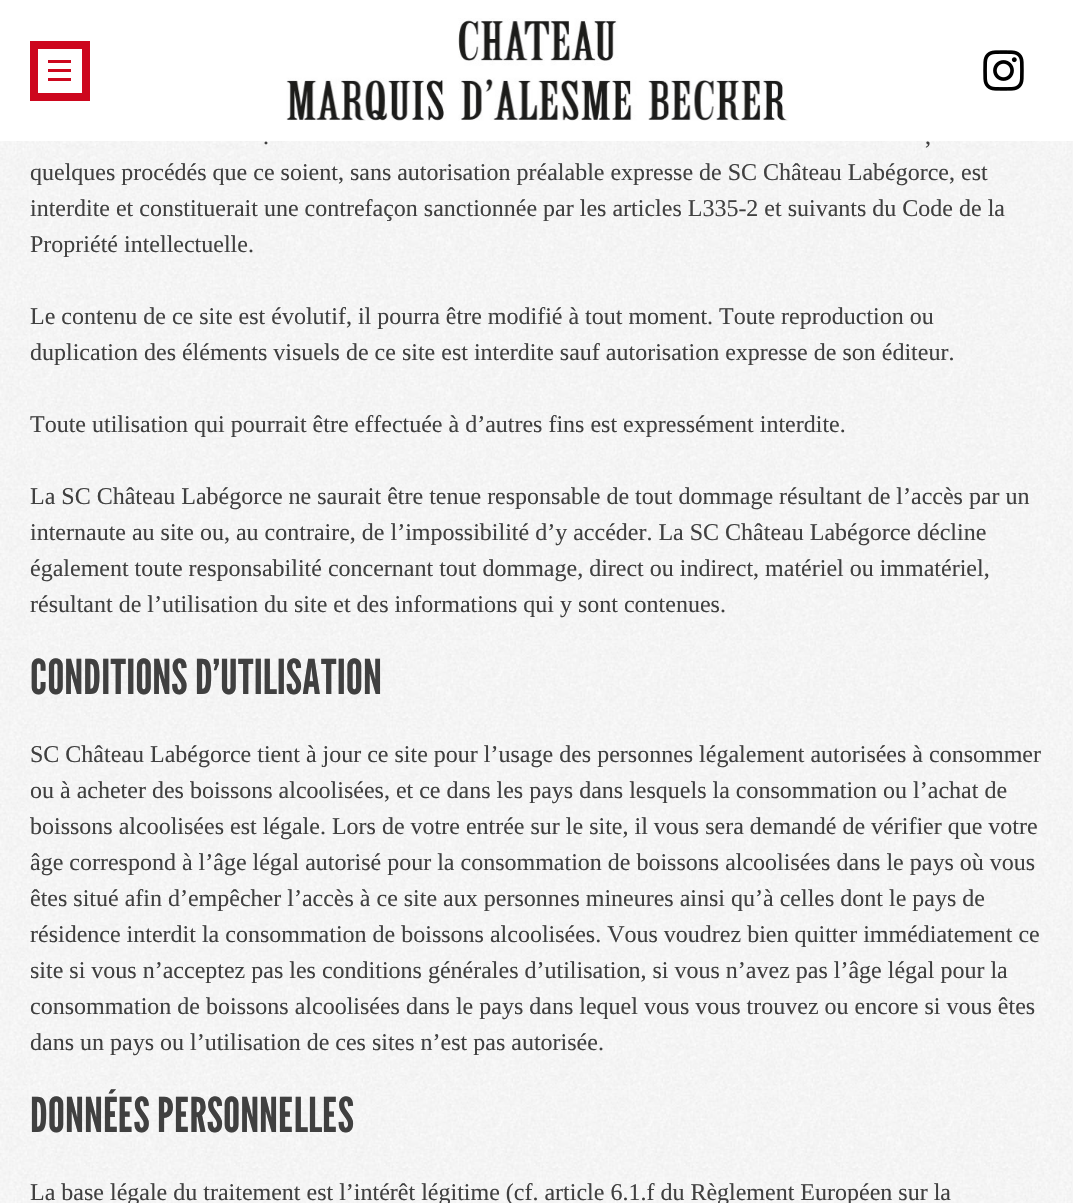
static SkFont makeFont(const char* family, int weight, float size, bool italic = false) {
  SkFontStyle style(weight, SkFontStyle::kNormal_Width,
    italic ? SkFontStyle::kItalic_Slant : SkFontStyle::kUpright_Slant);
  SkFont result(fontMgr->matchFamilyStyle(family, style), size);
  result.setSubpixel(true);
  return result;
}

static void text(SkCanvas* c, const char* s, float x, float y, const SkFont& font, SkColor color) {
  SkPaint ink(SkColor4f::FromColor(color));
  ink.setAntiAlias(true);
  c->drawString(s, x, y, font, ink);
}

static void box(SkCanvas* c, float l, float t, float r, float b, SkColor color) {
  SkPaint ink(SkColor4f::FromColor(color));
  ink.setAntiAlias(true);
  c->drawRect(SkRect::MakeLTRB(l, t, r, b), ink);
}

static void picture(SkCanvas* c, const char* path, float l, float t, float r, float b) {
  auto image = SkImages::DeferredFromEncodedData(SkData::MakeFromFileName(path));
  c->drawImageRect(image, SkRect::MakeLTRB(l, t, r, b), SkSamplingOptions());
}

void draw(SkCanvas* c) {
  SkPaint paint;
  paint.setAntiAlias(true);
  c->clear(0xfff5f5f5);
  picture(c, "img_01.png", 0, 141, 1072, 1203);
  box(c, 0, 0, 1073, 141, 0xffffffff);
  paint.setStyle(SkPaint::kStroke_Style);
  paint.setStrokeWidth(8);
  paint.setColor(0xffcd071e);
  c->drawRect(SkRect::MakeLTRB(34, 45, 86, 97), paint);
  box(c, 48, 60, 71, 63, 0xffcd071e);
  box(c, 48, 69, 71, 72, 0xffcd071e);
  box(c, 48, 78, 71, 81, 0xffcd071e);
  picture(c, "img_02.png", 286, 18, 789, 121);
  picture(c, "img_03.png", 983, 50, 1024, 91);
  SkFont face1 = makeFont("Liberation Serif", 400, 24);
  text(c, ".", 263, 144, face1, 0xff404040);
  text(c, ",", 925, 144, face1, 0xff404040);
  text(c, "quelques procédés que ce soient, sans autorisation préalable expresse de SC Château Labégorce, est", 30, 180, face1, 0xff404040);
  text(c, "interdite et constituerait une contrefaçon sanctionnée par les articles L335-2 et suivants du Code de la", 30, 216, face1, 0xff404040);
  text(c, "Propriété intellectuelle.", 30, 252, face1, 0xff404040);
  text(c, "Le contenu de ce site est évolutif, il pourra être modifié à tout moment. Toute reproduction ou", 30, 324, face1, 0xff404040);
  text(c, "duplication des éléments visuels de ce site est interdite sauf autorisation expresse de son éditeur.", 30, 360, face1, 0xff404040);
  text(c, "Toute utilisation qui pourrait être effectuée à d’autres fins est expressément interdite.", 30, 432, face1, 0xff404040);
  text(c, "La SC Château Labégorce ne saurait être tenue responsable de tout dommage résultant de l’accès par un", 30, 504, face1, 0xff404040);
  text(c, "internaute au site ou, au contraire, de l’impossibilité d’y accéder. La SC Château Labégorce décline", 30, 540, face1, 0xff404040);
  text(c, "également toute responsabilité concernant tout dommage, direct ou indirect, matériel ou immatériel,", 30, 576, face1, 0xff404040);
  text(c, "résultant de l’utilisation du site et des informations qui y sont contenues.", 30, 612, face1, 0xff404040);
  SkFont face2 = makeFont("League Gothic", 400, 48);
  text(c, "CONDITIONS D’UTILISATION", 30, 694, face2, 0xff404040);
  text(c, "SC Château Labégorce tient à jour ce site pour l’usage des personnes légalement autorisées à consommer", 30, 762, face1, 0xff404040);
  text(c, "ou à acheter des boissons alcoolisées, et ce dans les pays dans lesquels la consommation ou l’achat de", 30, 798, face1, 0xff404040);
  text(c, "boissons alcoolisées est légale. Lors de votre entrée sur le site, il vous sera demandé de vérifier que votre", 30, 834, face1, 0xff404040);
  text(c, "âge correspond à l’âge légal autorisé pour la consommation de boissons alcoolisées dans le pays où vous", 30, 870, face1, 0xff404040);
  text(c, "êtes situé afin d’empêcher l’accès à ce site aux personnes mineures ainsi qu’à celles dont le pays de", 30, 906, face1, 0xff404040);
  text(c, "résidence interdit la consommation de boissons alcoolisées. Vous voudrez bien quitter immédiatement ce", 30, 942, face1, 0xff404040);
  text(c, "site si vous n’acceptez pas les conditions générales d’utilisation, si vous n’avez pas l’âge légal pour la", 30, 978, face1, 0xff404040);
  text(c, "consommation de boissons alcoolisées dans le pays dans lequel vous vous trouvez ou encore si vous êtes", 30, 1014, face1, 0xff404040);
  text(c, "dans un pays ou l’utilisation de ces sites n’est pas autorisée.", 30, 1050, face1, 0xff404040);
  text(c, "DONNÉES PERSONNELLES", 30, 1132, face2, 0xff404040);
  text(c, "La base légale du traitement est l’intérêt légitime (cf. article 6.1.f du Règlement Européen sur la", 30, 1200, face1, 0xff404040);
}
